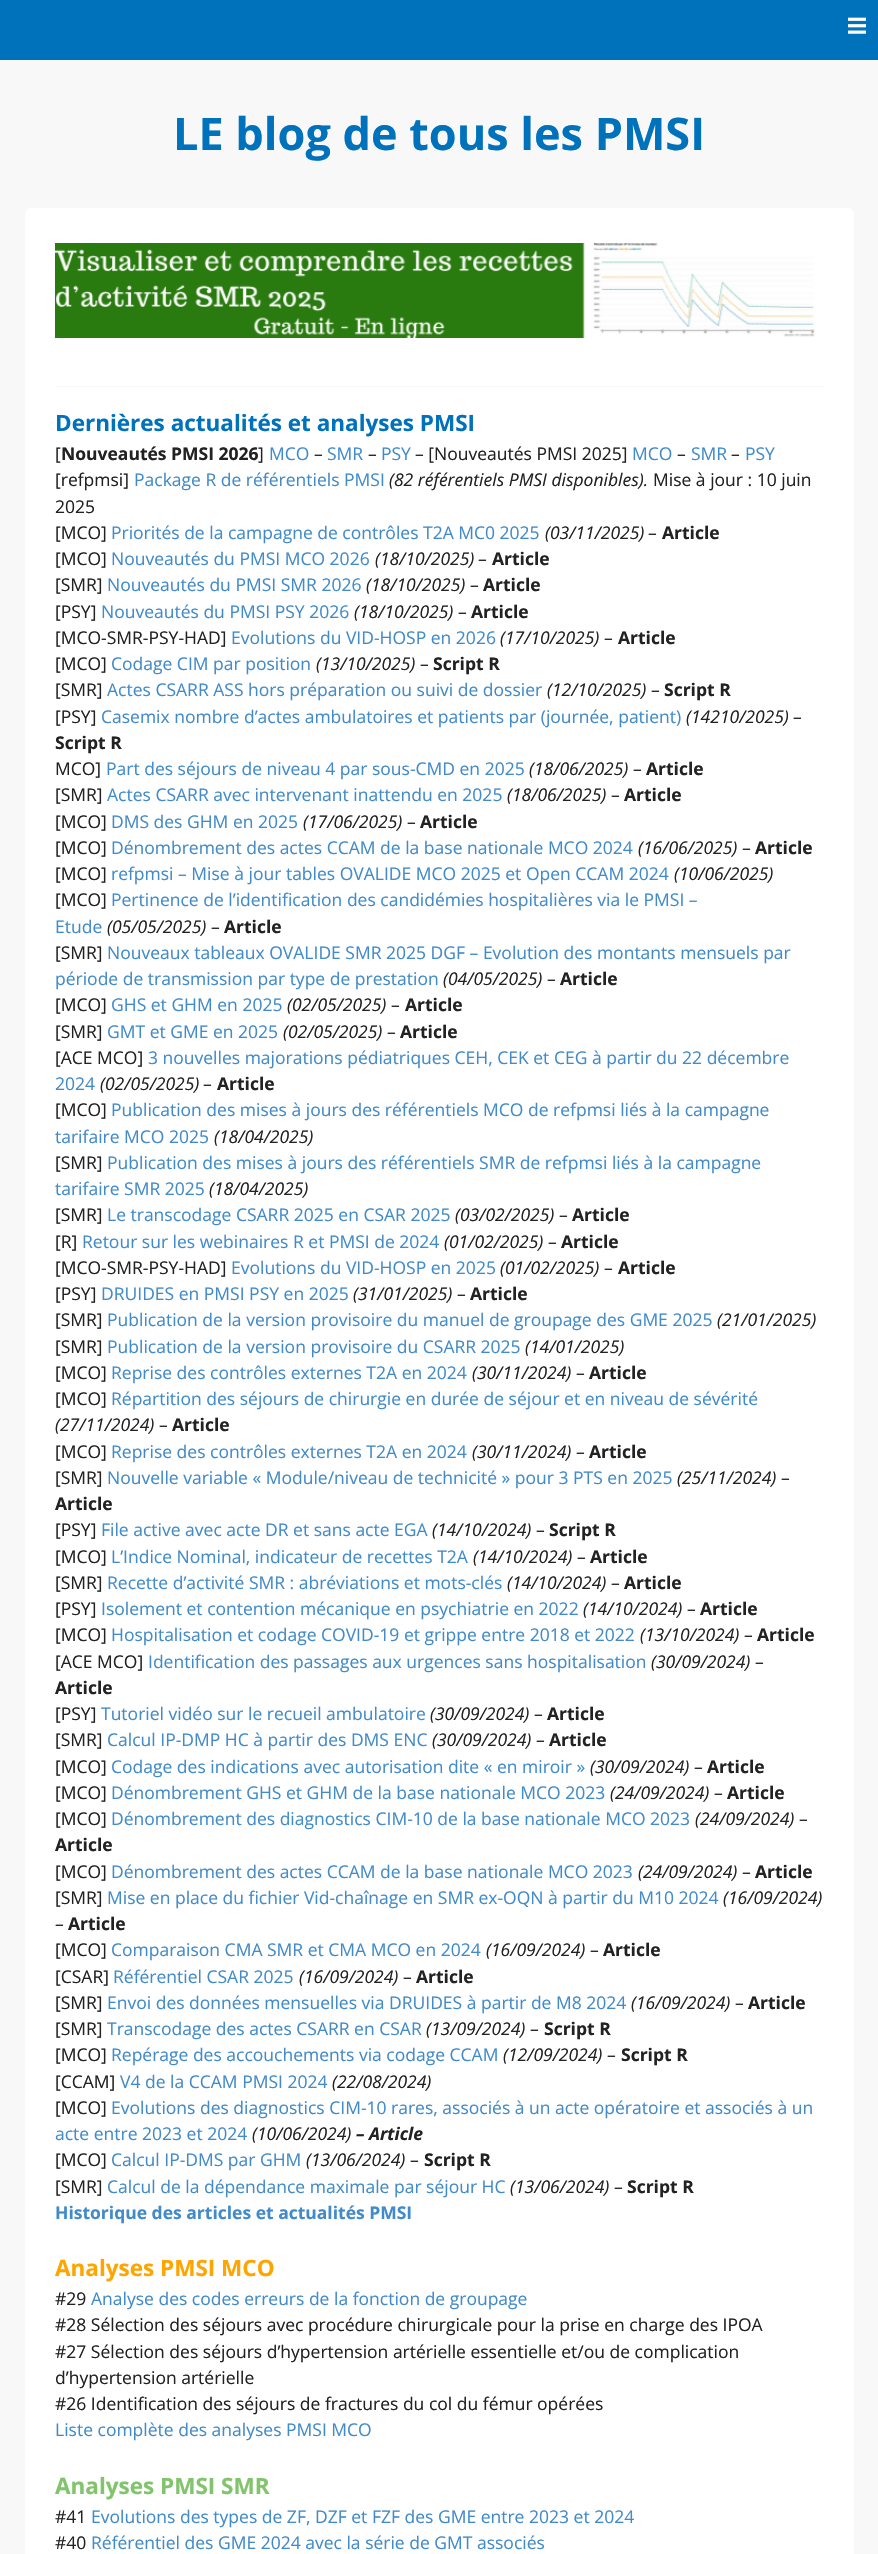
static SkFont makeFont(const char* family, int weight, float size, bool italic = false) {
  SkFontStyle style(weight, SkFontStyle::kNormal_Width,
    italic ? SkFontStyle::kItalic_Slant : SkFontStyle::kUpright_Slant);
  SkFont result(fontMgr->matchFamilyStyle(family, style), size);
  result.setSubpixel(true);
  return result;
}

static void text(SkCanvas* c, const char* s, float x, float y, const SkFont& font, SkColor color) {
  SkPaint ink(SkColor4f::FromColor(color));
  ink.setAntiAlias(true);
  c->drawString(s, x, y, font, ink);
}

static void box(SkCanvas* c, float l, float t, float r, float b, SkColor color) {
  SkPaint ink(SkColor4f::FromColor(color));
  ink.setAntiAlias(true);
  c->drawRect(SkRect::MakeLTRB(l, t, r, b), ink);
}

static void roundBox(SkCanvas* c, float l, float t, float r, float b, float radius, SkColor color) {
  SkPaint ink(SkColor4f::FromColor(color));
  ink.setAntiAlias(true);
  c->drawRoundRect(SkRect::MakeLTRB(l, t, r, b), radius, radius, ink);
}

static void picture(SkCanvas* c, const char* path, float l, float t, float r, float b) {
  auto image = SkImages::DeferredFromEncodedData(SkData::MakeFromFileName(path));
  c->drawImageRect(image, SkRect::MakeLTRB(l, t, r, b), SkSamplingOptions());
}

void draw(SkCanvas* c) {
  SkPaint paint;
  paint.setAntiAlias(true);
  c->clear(0xfff8f8f8);
  box(c, 0, 0, 878, 60, 0xff0072bc);
  picture(c, "img_01.png", 848, 17, 866, 34);
  SkFont face1 = makeFont("Open Sans", 700, 45);
  text(c, "LE blog de tous les PMSI", 173, 150, face1, 0xff0072bc);
  roundBox(c, 25, 208, 854, 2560, 6, 0xffffffff);
  picture(c, "img_02.png", 55, 243, 815, 338);
  box(c, 55, 386, 824, 387, 0xfff8f8f8);
  SkFont face2 = makeFont("Open Sans", 700, 22.5f);
  text(c, "Dernières actualités et analyses PMSI", 55, 431, face2, 0xff0072bc);
  SkFont face3 = makeFont("Open Sans", 400, 17.5f);
  text(c, "[", 55, 460, face3, 0xff222222);
  SkFont face4 = makeFont("Open Sans", 700, 17.5f);
  text(c, "Nouveautés PMSI 2026", 61, 460, face4, 0xff222222);
  text(c, "]", 258, 460, face3, 0xff222222);
  text(c, "MCO", 269, 460, face3, 0xff428bca);
  text(c, "–", 314, 460, face3, 0xff222222);
  text(c, "SMR", 327, 460, face3, 0xff428bca);
  text(c, "–", 368, 460, face3, 0xff222222);
  text(c, "PSY", 381, 460, face3, 0xff428bca);
  text(c, "– [Nouveautés PMSI 2025]", 415, 460, face3, 0xff222222);
  text(c, "MCO", 632, 460, face3, 0xff428bca);
  text(c, "–", 677, 460, face3, 0xff222222);
  text(c, "SMR", 691, 460, face3, 0xff428bca);
  text(c, "–", 731, 460, face3, 0xff222222);
  text(c, "PSY", 745, 460, face3, 0xff428bca);
  text(c, "[refpmsi]", 55, 486, face3, 0xff222222);
  text(c, "Package R de référentiels PMSI", 134, 486, face3, 0xff428bca);
  SkFont face5 = makeFont("Open Sans", 400, 17.5f, true);
  text(c, "(82 référentiels PMSI disponibles).", 389, 486, face5, 0xff222222);
  text(c, "Mise à jour : 10 juin", 653, 486, face3, 0xff222222);
  text(c, "2025", 55, 513, face3, 0xff222222);
  text(c, "[MCO]", 55, 539, face3, 0xff222222);
  text(c, "Priorités de la campagne de contrôles T2A MC0 2025", 111, 539, face3, 0xff428bca);
  text(c, "(03/11/2025)", 545, 539, face5, 0xff222222);
  text(c, "–", 648, 539, face3, 0xff222222);
  text(c, "Article", 662, 539, face4, 0xff222222);
  text(c, "[MCO]", 55, 565, face3, 0xff222222);
  text(c, "Nouveautés du PMSI MCO 2026", 111, 565, face3, 0xff428bca);
  text(c, "(18/10/2025)", 375, 565, face5, 0xff222222);
  text(c, "–", 478, 565, face3, 0xff222222);
  text(c, "Article", 492, 565, face4, 0xff222222);
  text(c, "[SMR]", 55, 591, face3, 0xff222222);
  text(c, "Nouveautés du PMSI SMR 2026", 107, 591, face3, 0xff428bca);
  text(c, "(18/10/2025)", 366, 591, face5, 0xff222222);
  text(c, "–", 470, 591, face3, 0xff222222);
  text(c, "Article", 483, 591, face4, 0xff222222);
  text(c, "[PSY]", 55, 618, face3, 0xff222222);
  text(c, "Nouveautés du PMSI PSY 2026", 101, 618, face3, 0xff428bca);
  text(c, "(18/10/2025)", 354, 618, face5, 0xff222222);
  text(c, "–", 458, 618, face3, 0xff222222);
  text(c, "Article", 471, 618, face4, 0xff222222);
  text(c, "[MCO-SMR-PSY-HAD]", 55, 644, face3, 0xff222222);
  text(c, "Evolutions du VID-HOSP en 2026", 231, 644, face3, 0xff428bca);
  text(c, "(17/10/2025)", 500, 644, face5, 0xff222222);
  text(c, "–", 604, 644, face3, 0xff222222);
  text(c, "Article", 618, 644, face4, 0xff222222);
  text(c, "[MCO]", 55, 670, face3, 0xff222222);
  text(c, "Codage CIM par position", 111, 670, face3, 0xff428bca);
  text(c, "(13/10/2025)", 316, 670, face5, 0xff222222);
  text(c, "–", 420, 670, face3, 0xff222222);
  text(c, "Script R", 433, 670, face4, 0xff222222);
  text(c, "[SMR]", 55, 696, face3, 0xff222222);
  text(c, "Actes CSARR ASS hors préparation ou suivi de dossier", 107, 696, face3, 0xff428bca);
  text(c, "(12/10/2025)", 547, 696, face5, 0xff222222);
  text(c, "–", 651, 696, face3, 0xff222222);
  text(c, "Script R", 664, 696, face4, 0xff222222);
  text(c, "[PSY]", 55, 723, face3, 0xff222222);
  text(c, "Casemix nombre d’actes ambulatoires et patients par (journée, patient)", 101, 723, face3, 0xff428bca);
  text(c, "(14210/2025)", 686, 723, face5, 0xff222222);
  text(c, "–", 793, 723, face3, 0xff222222);
  text(c, "Script R", 55, 749, face4, 0xff222222);
  text(c, "MCO]", 55, 775, face3, 0xff222222);
  text(c, "Part des séjours de niveau 4 par sous-CMD en 2025", 106, 775, face3, 0xff428bca);
  text(c, "(18/06/2025)", 529, 775, face5, 0xff222222);
  text(c, "–", 633, 775, face3, 0xff222222);
  text(c, "Article", 646, 775, face4, 0xff222222);
  text(c, "[SMR]", 55, 801, face3, 0xff222222);
  text(c, "Actes CSARR avec intervenant inattendu en 2025", 107, 801, face3, 0xff428bca);
  text(c, "(18/06/2025)", 507, 801, face5, 0xff222222);
  text(c, "–", 611, 801, face3, 0xff222222);
  text(c, "Article", 624, 801, face4, 0xff222222);
  text(c, "[MCO]", 55, 828, face3, 0xff222222);
  text(c, "DMS des GHM en 2025", 111, 828, face3, 0xff428bca);
  text(c, "(17/06/2025)", 303, 828, face5, 0xff222222);
  text(c, "–", 407, 828, face3, 0xff222222);
  text(c, "Article", 420, 828, face4, 0xff222222);
  text(c, "[MCO]", 55, 854, face3, 0xff222222);
  text(c, "Dénombrement des actes CCAM de la base nationale MCO 2024", 111, 854, face3, 0xff428bca);
  text(c, "(16/06/2025)", 638, 854, face5, 0xff222222);
  text(c, "–", 742, 854, face3, 0xff222222);
  text(c, "Article", 755, 854, face4, 0xff222222);
  text(c, "[MCO]", 55, 880, face3, 0xff222222);
  text(c, "refpmsi – Mise à jour tables OVALIDE MCO 2025 et Open CCAM 2024", 111, 880, face3, 0xff428bca);
  text(c, "(10/06/2025)", 674, 880, face5, 0xff222222);
  text(c, "[MCO]", 55, 906, face3, 0xff222222);
  text(c, "Pertinence de l’identification des candidémies hospitalières via le PMSI –", 111, 906, face3, 0xff428bca);
  text(c, "Etude", 55, 933, face3, 0xff428bca);
  text(c, "(05/05/2025)", 107, 933, face5, 0xff222222);
  text(c, "–", 211, 933, face3, 0xff222222);
  text(c, "Article", 224, 933, face4, 0xff222222);
  text(c, "[SMR]", 55, 959, face3, 0xff222222);
  text(c, "Nouveaux tableaux OVALIDE SMR 2025 DGF – Evolution des montants mensuels par", 107, 959, face3, 0xff428bca);
  text(c, "période de transmission par type de prestation", 55, 985, face3, 0xff428bca);
  text(c, "(04/05/2025)", 443, 985, face5, 0xff222222);
  text(c, "–", 547, 985, face3, 0xff222222);
  text(c, "Article", 560, 985, face4, 0xff222222);
  text(c, "[MCO]", 55, 1011, face3, 0xff222222);
  text(c, "GHS et GHM en 2025", 111, 1011, face3, 0xff428bca);
  text(c, "(02/05/2025)", 287, 1011, face5, 0xff222222);
  text(c, "–", 391, 1011, face3, 0xff222222);
  text(c, "Article", 405, 1011, face4, 0xff222222);
  text(c, "[SMR]", 55, 1038, face3, 0xff222222);
  text(c, "GMT et GME en 2025", 107, 1038, face3, 0xff428bca);
  text(c, "(02/05/2025)", 283, 1038, face5, 0xff222222);
  text(c, "–", 387, 1038, face3, 0xff222222);
  text(c, "Article", 400, 1038, face4, 0xff222222);
  text(c, "[ACE MCO]", 55, 1064, face3, 0xff222222);
  text(c, "3 nouvelles majorations pédiatriques CEH, CEK et CEG à partir du 22 décembre", 148, 1064, face3, 0xff428bca);
  text(c, "2024", 55, 1090, face3, 0xff428bca);
  text(c, "(02/05/2025)", 100, 1090, face5, 0xff222222);
  text(c, "–", 203, 1090, face3, 0xff222222);
  text(c, "Article", 217, 1090, face4, 0xff222222);
  text(c, "[MCO]", 55, 1116, face3, 0xff222222);
  text(c, "Publication des mises à jours des référentiels MCO de refpmsi liés à la campagne", 111, 1116, face3, 0xff428bca);
  text(c, "tarifaire MCO 2025", 55, 1143, face3, 0xff428bca);
  text(c, "(18/04/2025)", 214, 1143, face5, 0xff222222);
  text(c, "[SMR]", 55, 1169, face3, 0xff222222);
  text(c, "Publication des mises à jours des référentiels SMR de refpmsi liés à la campagne", 107, 1169, face3, 0xff428bca);
  text(c, "tarifaire SMR 2025", 55, 1195, face3, 0xff428bca);
  text(c, "(18/04/2025)", 209, 1195, face5, 0xff222222);
  text(c, "[SMR]", 55, 1221, face3, 0xff222222);
  text(c, "Le transcodage CSARR 2025 en CSAR 2025", 107, 1221, face3, 0xff428bca);
  text(c, "(03/02/2025)", 455, 1221, face5, 0xff222222);
  text(c, "–", 559, 1221, face3, 0xff222222);
  text(c, "Article", 572, 1221, face4, 0xff222222);
  text(c, "[R]", 55, 1248, face3, 0xff222222);
  text(c, "Retour sur les webinaires R et PMSI de 2024", 82, 1248, face3, 0xff428bca);
  text(c, "(01/02/2025)", 444, 1248, face5, 0xff222222);
  text(c, "–", 548, 1248, face3, 0xff222222);
  text(c, "Article", 561, 1248, face4, 0xff222222);
  text(c, "[MCO-SMR-PSY-HAD]", 55, 1274, face3, 0xff222222);
  text(c, "Evolutions du VID-HOSP en 2025", 231, 1274, face3, 0xff428bca);
  text(c, "(01/02/2025)", 500, 1274, face5, 0xff222222);
  text(c, "–", 604, 1274, face3, 0xff222222);
  text(c, "Article", 618, 1274, face4, 0xff222222);
  text(c, "[PSY]", 55, 1300, face3, 0xff222222);
  text(c, "DRUIDES en PMSI PSY en 2025", 101, 1300, face3, 0xff428bca);
  text(c, "(31/01/2025)", 353, 1300, face5, 0xff222222);
  text(c, "–", 457, 1300, face3, 0xff222222);
  text(c, "Article", 470, 1300, face4, 0xff222222);
  text(c, "[SMR]", 55, 1326, face3, 0xff222222);
  text(c, "Publication de la version provisoire du manuel de groupage des GME 2025", 107, 1326, face3, 0xff428bca);
  text(c, "(21/01/2025)", 717, 1326, face5, 0xff222222);
  text(c, "[SMR]", 55, 1353, face3, 0xff222222);
  text(c, "Publication de la version provisoire du CSARR 2025", 107, 1353, face3, 0xff428bca);
  text(c, "(14/01/2025)", 525, 1353, face5, 0xff222222);
  text(c, "[MCO]", 55, 1379, face3, 0xff222222);
  text(c, "Reprise des contrôles externes T2A en 2024", 111, 1379, face3, 0xff428bca);
  text(c, "(30/11/2024)", 472, 1379, face5, 0xff222222);
  text(c, "–", 576, 1379, face3, 0xff222222);
  text(c, "Article", 589, 1379, face4, 0xff222222);
  text(c, "[MCO]", 55, 1405, face3, 0xff222222);
  text(c, "Répartition des séjours de chirurgie en durée de séjour et en niveau de sévérité", 111, 1405, face3, 0xff428bca);
  text(c, "(27/11/2024)", 55, 1431, face5, 0xff222222);
  text(c, "–", 159, 1431, face3, 0xff222222);
  text(c, "Article", 172, 1431, face4, 0xff222222);
  text(c, "[MCO]", 55, 1458, face3, 0xff222222);
  text(c, "Reprise des contrôles externes T2A en 2024", 111, 1458, face3, 0xff428bca);
  text(c, "(30/11/2024)", 472, 1458, face5, 0xff222222);
  text(c, "–", 576, 1458, face3, 0xff222222);
  text(c, "Article", 589, 1458, face4, 0xff222222);
  text(c, "[SMR]", 55, 1484, face3, 0xff222222);
  text(c, "Nouvelle variable « Module/niveau de technicité » pour 3 PTS en 2025", 107, 1484, face3, 0xff428bca);
  text(c, "(25/11/2024)", 677, 1484, face5, 0xff222222);
  text(c, "–", 781, 1484, face3, 0xff222222);
  text(c, "Article", 55, 1510, face4, 0xff222222);
  text(c, "[PSY]", 55, 1536, face3, 0xff222222);
  text(c, "File active avec acte DR et sans acte EGA", 101, 1536, face3, 0xff428bca);
  text(c, "(14/10/2024)", 432, 1536, face5, 0xff222222);
  text(c, "–", 536, 1536, face3, 0xff222222);
  text(c, "Script R", 549, 1536, face4, 0xff222222);
  text(c, "[MCO]", 55, 1563, face3, 0xff222222);
  text(c, "L’Indice Nominal, indicateur de recettes T2A", 111, 1563, face3, 0xff428bca);
  text(c, "(14/10/2024)", 473, 1563, face5, 0xff222222);
  text(c, "–", 577, 1563, face3, 0xff222222);
  text(c, "Article", 590, 1563, face4, 0xff222222);
  text(c, "[SMR]", 55, 1589, face3, 0xff222222);
  text(c, "Recette d’activité SMR : abréviations et mots-clés", 107, 1589, face3, 0xff428bca);
  text(c, "(14/10/2024)", 507, 1589, face5, 0xff222222);
  text(c, "–", 611, 1589, face3, 0xff222222);
  text(c, "Article", 624, 1589, face4, 0xff222222);
  text(c, "[PSY]", 55, 1615, face3, 0xff222222);
  text(c, "Isolement et contention mécanique en psychiatrie en 2022", 101, 1615, face3, 0xff428bca);
  text(c, "(14/10/2024)", 583, 1615, face5, 0xff222222);
  text(c, "–", 687, 1615, face3, 0xff222222);
  text(c, "Article", 700, 1615, face4, 0xff222222);
  text(c, "[MCO]", 55, 1641, face3, 0xff222222);
  text(c, "Hospitalisation et codage COVID-19 et grippe entre 2018 et 2022", 111, 1641, face3, 0xff428bca);
  text(c, "(13/10/2024)", 640, 1641, face5, 0xff222222);
  text(c, "–", 744, 1641, face3, 0xff222222);
  text(c, "Article", 757, 1641, face4, 0xff222222);
  text(c, "[ACE MCO]", 55, 1668, face3, 0xff222222);
  text(c, "Identification des passages aux urgences sans hospitalisation", 148, 1668, face3, 0xff428bca);
  text(c, "(30/09/2024)", 651, 1668, face5, 0xff222222);
  text(c, "–", 755, 1668, face3, 0xff222222);
  text(c, "Article", 55, 1694, face4, 0xff222222);
  text(c, "[PSY]", 55, 1720, face3, 0xff222222);
  text(c, "Tutoriel vidéo sur le recueil ambulatoire", 101, 1720, face3, 0xff428bca);
  text(c, "(30/09/2024)", 430, 1720, face5, 0xff222222);
  text(c, "–", 534, 1720, face3, 0xff222222);
  text(c, "Article", 547, 1720, face4, 0xff222222);
  text(c, "[SMR]", 55, 1746, face3, 0xff222222);
  text(c, "Calcul IP-DMP HC à partir des DMS ENC", 107, 1746, face3, 0xff428bca);
  text(c, "(30/09/2024)", 432, 1746, face5, 0xff222222);
  text(c, "–", 536, 1746, face3, 0xff222222);
  text(c, "Article", 549, 1746, face4, 0xff222222);
  text(c, "[MCO]", 55, 1773, face3, 0xff222222);
  text(c, "Codage des indications avec autorisation dite « en miroir »", 111, 1773, face3, 0xff428bca);
  text(c, "(30/09/2024)", 590, 1773, face5, 0xff222222);
  text(c, "–", 694, 1773, face3, 0xff222222);
  text(c, "Article", 707, 1773, face4, 0xff222222);
  text(c, "[MCO]", 55, 1799, face3, 0xff222222);
  text(c, "Dénombrement GHS et GHM de la base nationale MCO 2023", 111, 1799, face3, 0xff428bca);
  text(c, "(24/09/2024)", 610, 1799, face5, 0xff222222);
  text(c, "–", 714, 1799, face3, 0xff222222);
  text(c, "Article", 727, 1799, face4, 0xff222222);
  text(c, "[MCO]", 55, 1825, face3, 0xff222222);
  text(c, "Dénombrement des diagnostics CIM-10 de la base nationale MCO 2023", 111, 1825, face3, 0xff428bca);
  text(c, "(24/09/2024)", 695, 1825, face5, 0xff222222);
  text(c, "–", 799, 1825, face3, 0xff222222);
  text(c, "Article", 55, 1851, face4, 0xff222222);
  text(c, "[MCO]", 55, 1878, face3, 0xff222222);
  text(c, "Dénombrement des actes CCAM de la base nationale MCO 2023", 111, 1878, face3, 0xff428bca);
  text(c, "(24/09/2024)", 638, 1878, face5, 0xff222222);
  text(c, "–", 742, 1878, face3, 0xff222222);
  text(c, "Article", 755, 1878, face4, 0xff222222);
  text(c, "[SMR]", 55, 1904, face3, 0xff222222);
  text(c, "Mise en place du fichier Vid-chaînage en SMR ex-OQN à partir du M10 2024", 107, 1904, face3, 0xff428bca);
  text(c, "(16/09/2024)", 723, 1904, face5, 0xff222222);
  text(c, "–", 55, 1930, face3, 0xff222222);
  text(c, "Article", 68, 1930, face4, 0xff222222);
  text(c, "[MCO]", 55, 1956, face3, 0xff222222);
  text(c, "Comparaison CMA SMR et CMA MCO en 2024", 111, 1956, face3, 0xff428bca);
  text(c, "(16/09/2024)", 486, 1956, face5, 0xff222222);
  text(c, "–", 590, 1956, face3, 0xff222222);
  text(c, "Article", 603, 1956, face4, 0xff222222);
  text(c, "[CSAR]", 55, 1983, face3, 0xff222222);
  text(c, "Référentiel CSAR 2025", 113, 1983, face3, 0xff428bca);
  text(c, "(16/09/2024)", 299, 1983, face5, 0xff222222);
  text(c, "–", 403, 1983, face3, 0xff222222);
  text(c, "Article", 416, 1983, face4, 0xff222222);
  text(c, "[SMR]", 55, 2009, face3, 0xff222222);
  text(c, "Envoi des données mensuelles via DRUIDES à partir de M8 2024", 107, 2009, face3, 0xff428bca);
  text(c, "(16/09/2024)", 631, 2009, face5, 0xff222222);
  text(c, "–", 735, 2009, face3, 0xff222222);
  text(c, "Article", 748, 2009, face4, 0xff222222);
  text(c, "[SMR]", 55, 2035, face3, 0xff222222);
  text(c, "Transcodage des actes CSARR en CSAR", 107, 2035, face3, 0xff428bca);
  text(c, "(13/09/2024)", 426, 2035, face5, 0xff222222);
  text(c, "–", 530, 2035, face3, 0xff222222);
  text(c, "Script R", 544, 2035, face4, 0xff222222);
  text(c, "[MCO]", 55, 2061, face3, 0xff222222);
  text(c, "Repérage des accouchements via codage CCAM", 111, 2061, face3, 0xff428bca);
  text(c, "(12/09/2024)", 503, 2061, face5, 0xff222222);
  text(c, "–", 607, 2061, face3, 0xff222222);
  text(c, "Script R", 621, 2061, face4, 0xff222222);
  text(c, "[CCAM]", 55, 2088, face3, 0xff222222);
  text(c, "V4 de la CCAM PMSI 2024", 120, 2088, face3, 0xff428bca);
  text(c, "(22/08/2024)", 332, 2088, face5, 0xff222222);
  text(c, "[MCO]", 55, 2114, face3, 0xff222222);
  text(c, "Evolutions des diagnostics CIM-10 rares, associés à un acte opératoire et associés à un", 111, 2114, face3, 0xff428bca);
  text(c, "acte entre 2023 et 2024", 55, 2140, face3, 0xff428bca);
  text(c, "(10/06/2024)", 252, 2140, face5, 0xff222222);
  SkFont face6 = makeFont("Open Sans", 700, 17.5f, true);
  text(c, "– Article", 356, 2140, face6, 0xff222222);
  text(c, "[MCO]", 55, 2166, face3, 0xff222222);
  text(c, "Calcul IP-DMS par GHM", 111, 2166, face3, 0xff428bca);
  text(c, "(13/06/2024)", 306, 2166, face5, 0xff222222);
  text(c, "–", 410, 2166, face3, 0xff222222);
  text(c, "Script R", 424, 2166, face4, 0xff222222);
  text(c, "[SMR]", 55, 2193, face3, 0xff222222);
  text(c, "Calcul de la dépendance maximale par séjour HC", 107, 2193, face3, 0xff428bca);
  text(c, "(13/06/2024)", 510, 2193, face5, 0xff222222);
  text(c, "–", 614, 2193, face3, 0xff222222);
  text(c, "Script R", 627, 2193, face4, 0xff222222);
  text(c, "Historique des articles et actualités PMSI", 55, 2219, face4, 0xff428bca);
  text(c, "Analyses PMSI MCO", 55, 2276, face2, 0xffffa500);
  text(c, "#29", 55, 2305, face3, 0xff222222);
  text(c, "Analyse des codes erreurs de la fonction de groupage", 91, 2305, face3, 0xff428bca);
  text(c, "#28 Sélection des séjours avec procédure chirurgicale pour la prise en charge des IPOA", 55, 2331, face3, 0xff222222);
  text(c, "#27 Sélection des séjours d’hypertension artérielle essentielle et/ou de complication", 55, 2358, face3, 0xff222222);
  text(c, "d’hypertension artérielle", 55, 2384, face3, 0xff222222);
  text(c, "#26 Identification des séjours de fractures du col du fémur opérées", 55, 2410, face3, 0xff222222);
  text(c, "Liste complète des analyses PMSI MCO", 55, 2436, face3, 0xff428bca);
  text(c, "Analyses PMSI SMR", 55, 2494, face2, 0xff82c46c);
  text(c, "#41", 55, 2523, face3, 0xff222222);
  text(c, "Evolutions des types de ZF, DZF et FZF des GME entre 2023 et 2024", 91, 2523, face3, 0xff428bca);
  text(c, "#40", 55, 2549, face3, 0xff222222);
  text(c, "Référentiel des GME 2024 avec la série de GMT associés", 91, 2549, face3, 0xff428bca);
}
